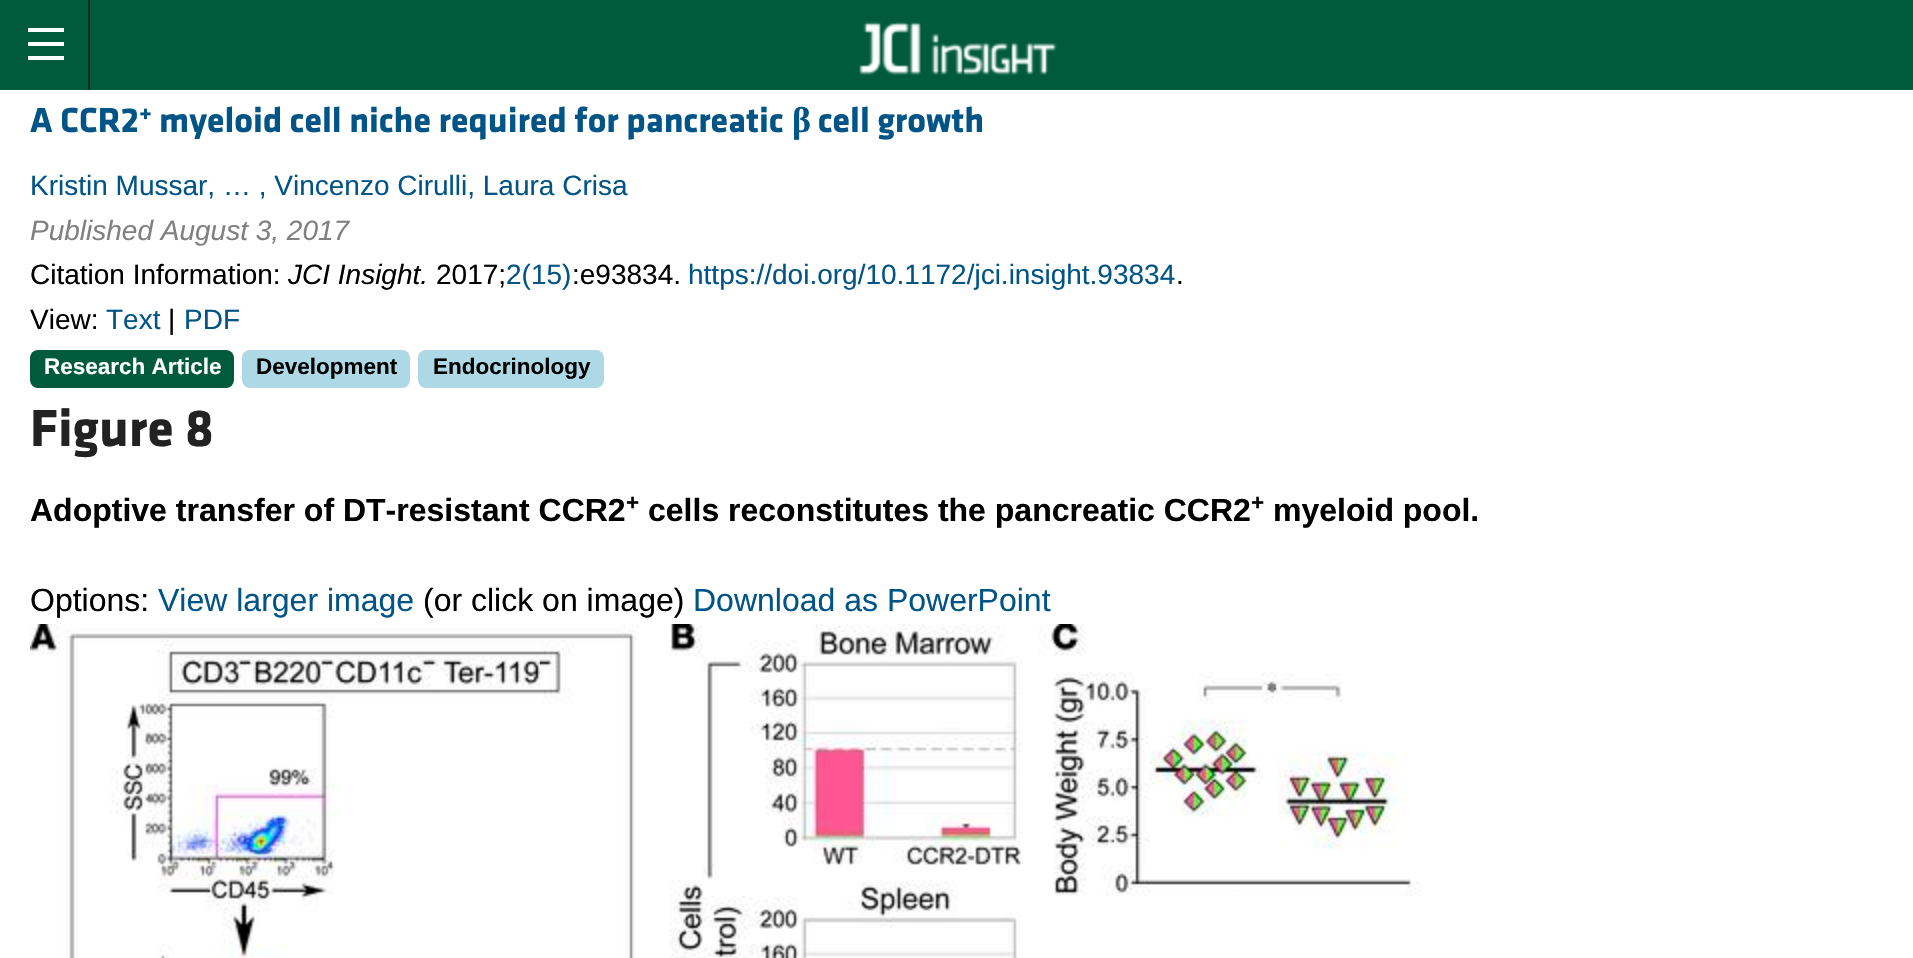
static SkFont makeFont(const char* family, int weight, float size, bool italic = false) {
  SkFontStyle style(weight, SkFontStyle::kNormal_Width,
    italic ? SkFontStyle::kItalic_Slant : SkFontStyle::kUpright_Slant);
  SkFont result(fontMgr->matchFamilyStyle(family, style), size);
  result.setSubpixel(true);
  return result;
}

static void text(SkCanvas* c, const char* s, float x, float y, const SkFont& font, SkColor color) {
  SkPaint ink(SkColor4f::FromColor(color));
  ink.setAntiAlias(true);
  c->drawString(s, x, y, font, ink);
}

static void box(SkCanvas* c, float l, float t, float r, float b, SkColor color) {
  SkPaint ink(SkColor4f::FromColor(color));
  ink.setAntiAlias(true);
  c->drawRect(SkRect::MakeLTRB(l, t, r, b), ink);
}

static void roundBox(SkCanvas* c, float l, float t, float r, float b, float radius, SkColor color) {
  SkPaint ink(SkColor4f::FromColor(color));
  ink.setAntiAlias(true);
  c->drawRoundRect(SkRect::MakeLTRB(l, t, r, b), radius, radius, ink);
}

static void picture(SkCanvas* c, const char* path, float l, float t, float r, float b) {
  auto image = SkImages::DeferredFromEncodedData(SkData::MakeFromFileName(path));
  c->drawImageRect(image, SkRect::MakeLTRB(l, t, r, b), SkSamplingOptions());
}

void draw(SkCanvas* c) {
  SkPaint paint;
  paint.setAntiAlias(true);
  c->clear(0xffffffff);
  box(c, 0, 0, 1913, 90, 0xff005a3c);
  box(c, 88, 0, 90, 90, 0xff002d1e);
  box(c, 28, 56, 64, 60, 0xffffffff);
  box(c, 28, 42, 64, 46, 0xffffffff);
  box(c, 28, 28, 64, 32, 0xffffffff);
  picture(c, "img_01.png", 859, 21, 1057, 75);
  SkFont face1 = makeFont("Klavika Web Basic", 700, 36);
  text(c, "A CCR2", 30, 132, face1, 0xff015486);
  SkFont face2 = makeFont("Klavika Web Basic", 700, 25);
  text(c, "+", 139, 120, face2, 0xff015486);
  text(c, "myeloid cell niche required for pancreatic", 159, 132, face1, 0xff015486);
  SkFont face3 = makeFont("Liberation Serif", 700, 36);
  text(c, "β", 792, 132, face3, 0xff015486);
  text(c, "cell growth", 818, 132, face1, 0xff015486);
  SkFont face4 = makeFont("Liberation Sans", 400, 28);
  text(c, "Kristin Mussar, … , Vincenzo Cirulli, Laura Crisa", 30, 195, face4, 0xff015486);
  SkFont face5 = makeFont("Liberation Sans", 400, 28, true);
  text(c, "Published August 3, 2017", 30, 240, face5, 0xff808080);
  text(c, "Citation Information:", 30, 284, face4, 0xff000000);
  text(c, "JCI Insight.", 288, 284, face5, 0xff000000);
  text(c, "2017;", 436, 284, face4, 0xff000000);
  text(c, "2(15)", 506, 284, face4, 0xff015486);
  text(c, ":e93834.", 572, 284, face4, 0xff000000);
  text(c, "https://doi.org/10.1172/jci.insight.93834", 688, 284, face4, 0xff015486);
  text(c, ".", 1176, 284, face4, 0xff000000);
  text(c, "View:", 30, 329, face4, 0xff000000);
  text(c, "Text", 106, 329, face4, 0xff015486);
  text(c, "|", 168, 329, face4, 0xff000000);
  text(c, "PDF", 184, 329, face4, 0xff015486);
  roundBox(c, 30, 350, 234, 388, 8, 0xff005a3c);
  SkFont face6 = makeFont("Liberation Sans", 700, 22.5f);
  text(c, "Research Article", 44, 374, face6, 0xffffffff);
  roundBox(c, 242, 350, 410, 388, 8, 0xffadd8e6);
  text(c, "Development", 256, 374, face6, 0xff000000);
  roundBox(c, 418, 350, 604, 388, 8, 0xffadd8e6);
  text(c, "Endocrinology", 433, 374, face6, 0xff000000);
  SkFont face7 = makeFont("Klavika Web Basic", 700, 54);
  text(c, "Figure 8", 30, 446, face7, 0xff222222);
  SkFont face8 = makeFont("Liberation Sans", 700, 32);
  text(c, "Adoptive transfer of DT-resistant CCR2", 30, 521, face8, 0xff000000);
  text(c, "+", 626, 510, face6, 0xff000000);
  text(c, "cells reconstitutes the pancreatic CCR2", 648, 521, face8, 0xff000000);
  text(c, "+", 1251, 510, face6, 0xff000000);
  text(c, "myeloid pool.", 1273, 521, face8, 0xff000000);
  SkFont face9 = makeFont("Liberation Sans", 400, 32);
  text(c, "Options:", 30, 611, face9, 0xff000000);
  text(c, "View larger image", 158, 611, face9, 0xff015486);
  text(c, "(or click on image)", 423, 611, face9, 0xff000000);
  text(c, "Download as PowerPoint", 693, 611, face9, 0xff015486);
  picture(c, "img_02.png", 30, 624, 1422, 958);
}
